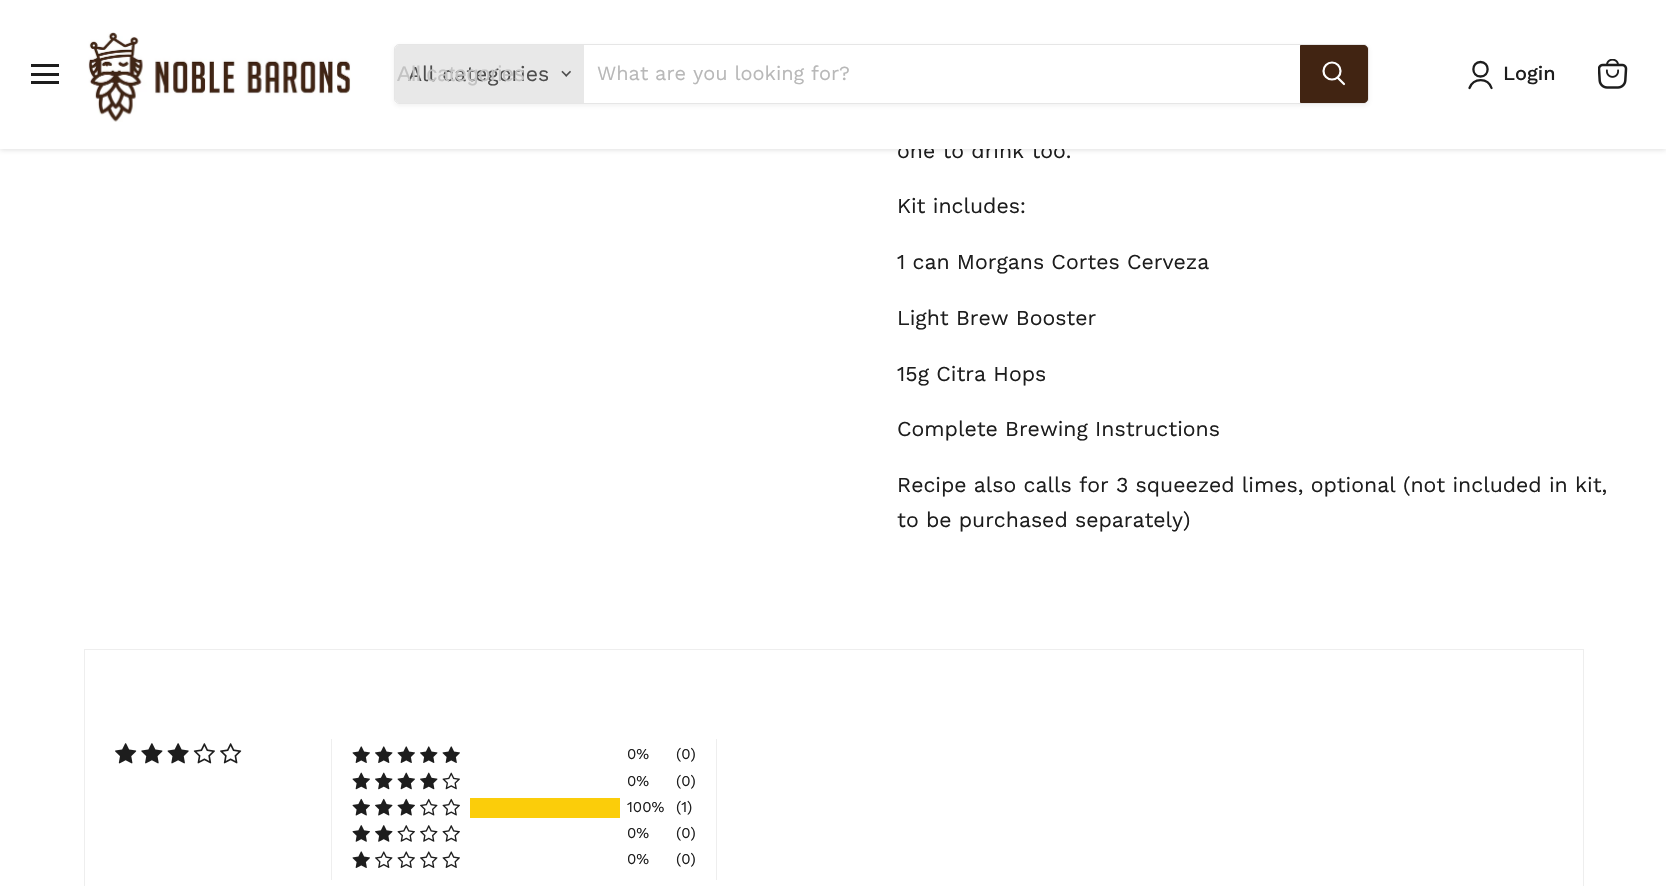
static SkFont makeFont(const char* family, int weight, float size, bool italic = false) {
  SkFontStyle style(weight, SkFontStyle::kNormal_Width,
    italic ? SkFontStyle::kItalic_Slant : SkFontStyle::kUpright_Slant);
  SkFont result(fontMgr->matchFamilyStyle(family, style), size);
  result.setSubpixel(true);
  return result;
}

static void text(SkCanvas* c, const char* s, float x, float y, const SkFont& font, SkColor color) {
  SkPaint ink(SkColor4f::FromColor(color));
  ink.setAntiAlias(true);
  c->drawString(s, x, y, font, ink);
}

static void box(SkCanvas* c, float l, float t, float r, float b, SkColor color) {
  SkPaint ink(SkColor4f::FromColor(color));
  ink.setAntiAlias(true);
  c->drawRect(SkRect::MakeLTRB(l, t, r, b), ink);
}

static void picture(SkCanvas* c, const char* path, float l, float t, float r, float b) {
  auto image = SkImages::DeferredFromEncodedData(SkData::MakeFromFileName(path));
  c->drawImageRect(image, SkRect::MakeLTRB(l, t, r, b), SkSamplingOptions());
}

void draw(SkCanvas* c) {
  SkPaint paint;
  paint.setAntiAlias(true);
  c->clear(0xffffffff);
  paint.setColor(0x40808080);
  paint.setMaskFilter(SkMaskFilter::MakeBlur(kNormal_SkBlurStyle, 2.5f));
  c->drawRect(SkRect::MakeLTRB(0, 1, 1666, 150), paint);
  paint.setMaskFilter(nullptr);
  SkFont face1 = makeFont("Work Sans", 400, 21.25f);
  text(c, "one to drink too.", 897, 158, face1, 0xff1d1d1d);
  box(c, 0, 0, 1666, 149, 0xffffffff);
  box(c, 31, 64, 59, 67, 0xff1d1d1d);
  box(c, 31, 73, 59, 76, 0xff1d1d1d);
  box(c, 31, 81, 59, 84, 0xff1d1d1d);
  picture(c, "img_01.png", 88, 32, 351, 122);
  c->save();
  c->clipPath(SkPathBuilder(SkPathFillType::kEvenOdd).moveTo(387, 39).lineTo(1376, 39).lineTo(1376, 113).lineTo(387, 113).close().moveTo(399, 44).lineTo(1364, 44).cubicTo(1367, 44, 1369, 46, 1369, 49).lineTo(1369, 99).cubicTo(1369, 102, 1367, 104, 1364, 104).lineTo(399, 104).cubicTo(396, 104, 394, 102, 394, 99).lineTo(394, 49).cubicTo(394, 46, 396, 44, 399, 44).close().detach(), true);
  paint.setColor(0x1c808080);
  paint.setMaskFilter(SkMaskFilter::MakeBlur(kNormal_SkBlurStyle, 2));
  c->drawRoundRect(SkRect::MakeLTRB(394, 46, 1369, 106), 5, 5, paint);
  paint.setMaskFilter(nullptr);
  c->restore();
  paint.setStyle(SkPaint::kStroke_Style);
  paint.setStrokeWidth(1);
  paint.setColor(0x33808080);
  c->drawRoundRect(SkRect::MakeLTRB(394.5f, 44.5f, 1368.5f, 103.5f), 4.5f, 4.5f, paint);
  paint.setStyle(SkPaint::kFill_Style);
  paint.setColor(0xffe8e8e8);
  c->drawPath(SkPathBuilder().moveTo(399, 45).lineTo(584, 45).lineTo(584, 103).lineTo(399, 103).cubicTo(397, 103, 395, 101, 395, 99).lineTo(395, 49).cubicTo(395, 47, 397, 45, 399, 45).close().detach(), paint);
  text(c, "All categories", 408, 81, face1, 0xff4d4d4d);
  SkFont face2 = makeFont("Liberation Sans", 400, 21.25f);
  text(c, "All categories", 397, 81, face2, 0xffc2c2c2);
  picture(c, "img_02.png", 561, 70, 571, 77);
  SkFont face3 = makeFont("Work Sans", 400, 20);
  text(c, "What are you looking for?", 597, 80, face3, 0xffb8b8b8);
  paint.setColor(0xff412412);
  c->drawPath(SkPathBuilder().moveTo(1300.5f, 45.5f).lineTo(1364, 45.5f).cubicTo(1366, 45.5f, 1367.5f, 47, 1367.5f, 49).lineTo(1367.5f, 99).cubicTo(1367.5f, 101, 1366, 102.5f, 1364, 102.5f).lineTo(1300.5f, 102.5f).close().detach(), paint);
  paint.setStyle(SkPaint::kStroke_Style);
  c->drawPath(SkPathBuilder().moveTo(1300.5f, 45.5f).lineTo(1364, 45.5f).cubicTo(1366, 45.5f, 1367.5f, 47, 1367.5f, 49).lineTo(1367.5f, 99).cubicTo(1367.5f, 101, 1366, 102.5f, 1364, 102.5f).lineTo(1300.5f, 102.5f).close().detach(), paint);
  paint.setStrokeWidth(2.2f);
  paint.setStrokeCap(SkPaint::kRound_Cap);
  paint.setColor(0xffffffff);
  c->drawPath(SkPathBuilder().moveTo(1344, 84).lineTo(1338, 78).detach(), paint);
  paint.setStrokeCap(SkPaint::kButt_Cap);
  c->drawCircle(1332, 71, 8.5f, paint);
  paint.setStrokeWidth(2.3f);
  paint.setStrokeCap(SkPaint::kRound_Cap);
  paint.setStrokeJoin(SkPaint::kRound_Join);
  paint.setColor(0xff1d1d1d);
  c->drawPath(SkPathBuilder().moveTo(1480.5f, 76.5f).cubicTo(1490, 76.5f, 1490, 62, 1480.5f, 62).cubicTo(1471, 62, 1471, 76.5f, 1480.5f, 76.5f).close().moveTo(1491.5f, 88).cubicTo(1488, 77.5f, 1473.5f, 77.5f, 1469.5f, 88).detach(), paint);
  SkFont face4 = makeFont("Work Sans", 500, 20);
  text(c, "Login", 1503, 80, face4, 0xff1d1d1d);
  picture(c, "img_03.png", 1598, 59, 1628, 89);
  text(c, "Kit includes:", 897, 213, face1, 0xff1d1d1d);
  text(c, "1 can Morgans Cortes Cerveza", 897, 269, face1, 0xff1d1d1d);
  text(c, "Light Brew Booster", 897, 325, face1, 0xff1d1d1d);
  text(c, "15g Citra Hops", 897, 381, face1, 0xff1d1d1d);
  text(c, "Complete Brewing Instructions", 897, 436, face1, 0xff1d1d1d);
  text(c, "Recipe also calls for 3 squeezed limes, optional (not included in kit,", 897, 492, face1, 0xff1d1d1d);
  text(c, "to be purchased separately)", 897, 527, face1, 0xff1d1d1d);
  paint.setStrokeWidth(1);
  paint.setStrokeCap(SkPaint::kButt_Cap);
  paint.setStrokeJoin(SkPaint::kMiter_Join);
  paint.setColor(0xffeeeeee);
  c->drawRect(SkRect::MakeLTRB(84.5f, 649.5f, 1583.5f, 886.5f), paint);
  picture(c, "img_04.png", 115, 743, 137, 764);
  picture(c, "img_05.png", 141, 743, 163, 764);
  picture(c, "img_06.png", 167, 743, 189, 764);
  picture(c, "img_07.png", 193, 743, 215, 764);
  picture(c, "img_08.png", 220, 743, 242, 764);
  box(c, 716, 739, 717, 880, 0xffeeeeee);
  box(c, 331, 739, 332, 880, 0xffeeeeee);
  picture(c, "img_09.png", 352, 746, 370, 763);
  picture(c, "img_10.png", 375, 746, 393, 763);
  picture(c, "img_09.png", 397, 746, 415, 763);
  picture(c, "img_10.png", 420, 746, 438, 763);
  picture(c, "img_09.png", 442, 746, 460, 763);
  SkFont face5 = makeFont("Work Sans", 400, 15);
  text(c, "0%", 627, 759, face5, 0xff1d1d1d);
  text(c, "(0)", 676, 759, face5, 0xff1d1d1d);
  picture(c, "img_11.png", 352, 772, 370, 790);
  picture(c, "img_12.png", 375, 772, 393, 790);
  picture(c, "img_11.png", 397, 772, 415, 790);
  picture(c, "img_12.png", 420, 772, 438, 790);
  picture(c, "img_13.png", 442, 772, 460, 790);
  text(c, "0%", 627, 786, face5, 0xff1d1d1d);
  text(c, "(0)", 676, 786, face5, 0xff1d1d1d);
  picture(c, "img_14.png", 352, 798, 370, 816);
  picture(c, "img_15.png", 375, 798, 393, 816);
  picture(c, "img_14.png", 397, 798, 415, 816);
  picture(c, "img_16.png", 420, 798, 438, 816);
  picture(c, "img_17.png", 442, 798, 460, 816);
  box(c, 470, 798, 620, 818, 0xfffbcd0a);
  text(c, "100%", 627, 812, face5, 0xff1d1d1d);
  text(c, "(1)", 676, 812, face5, 0xff1d1d1d);
  picture(c, "img_18.png", 352, 825, 370, 842);
  picture(c, "img_19.png", 375, 825, 393, 842);
  picture(c, "img_20.png", 397, 825, 415, 842);
  picture(c, "img_21.png", 420, 825, 438, 842);
  picture(c, "img_20.png", 442, 825, 460, 842);
  text(c, "0%", 627, 838, face5, 0xff1d1d1d);
  text(c, "(0)", 676, 838, face5, 0xff1d1d1d);
  picture(c, "img_09.png", 352, 851, 370, 868);
  picture(c, "img_22.png", 375, 851, 393, 868);
  picture(c, "img_23.png", 397, 851, 415, 868);
  picture(c, "img_22.png", 420, 851, 438, 868);
  picture(c, "img_23.png", 442, 851, 460, 868);
  text(c, "0%", 627, 864, face5, 0xff1d1d1d);
  text(c, "(0)", 676, 864, face5, 0xff1d1d1d);
}
